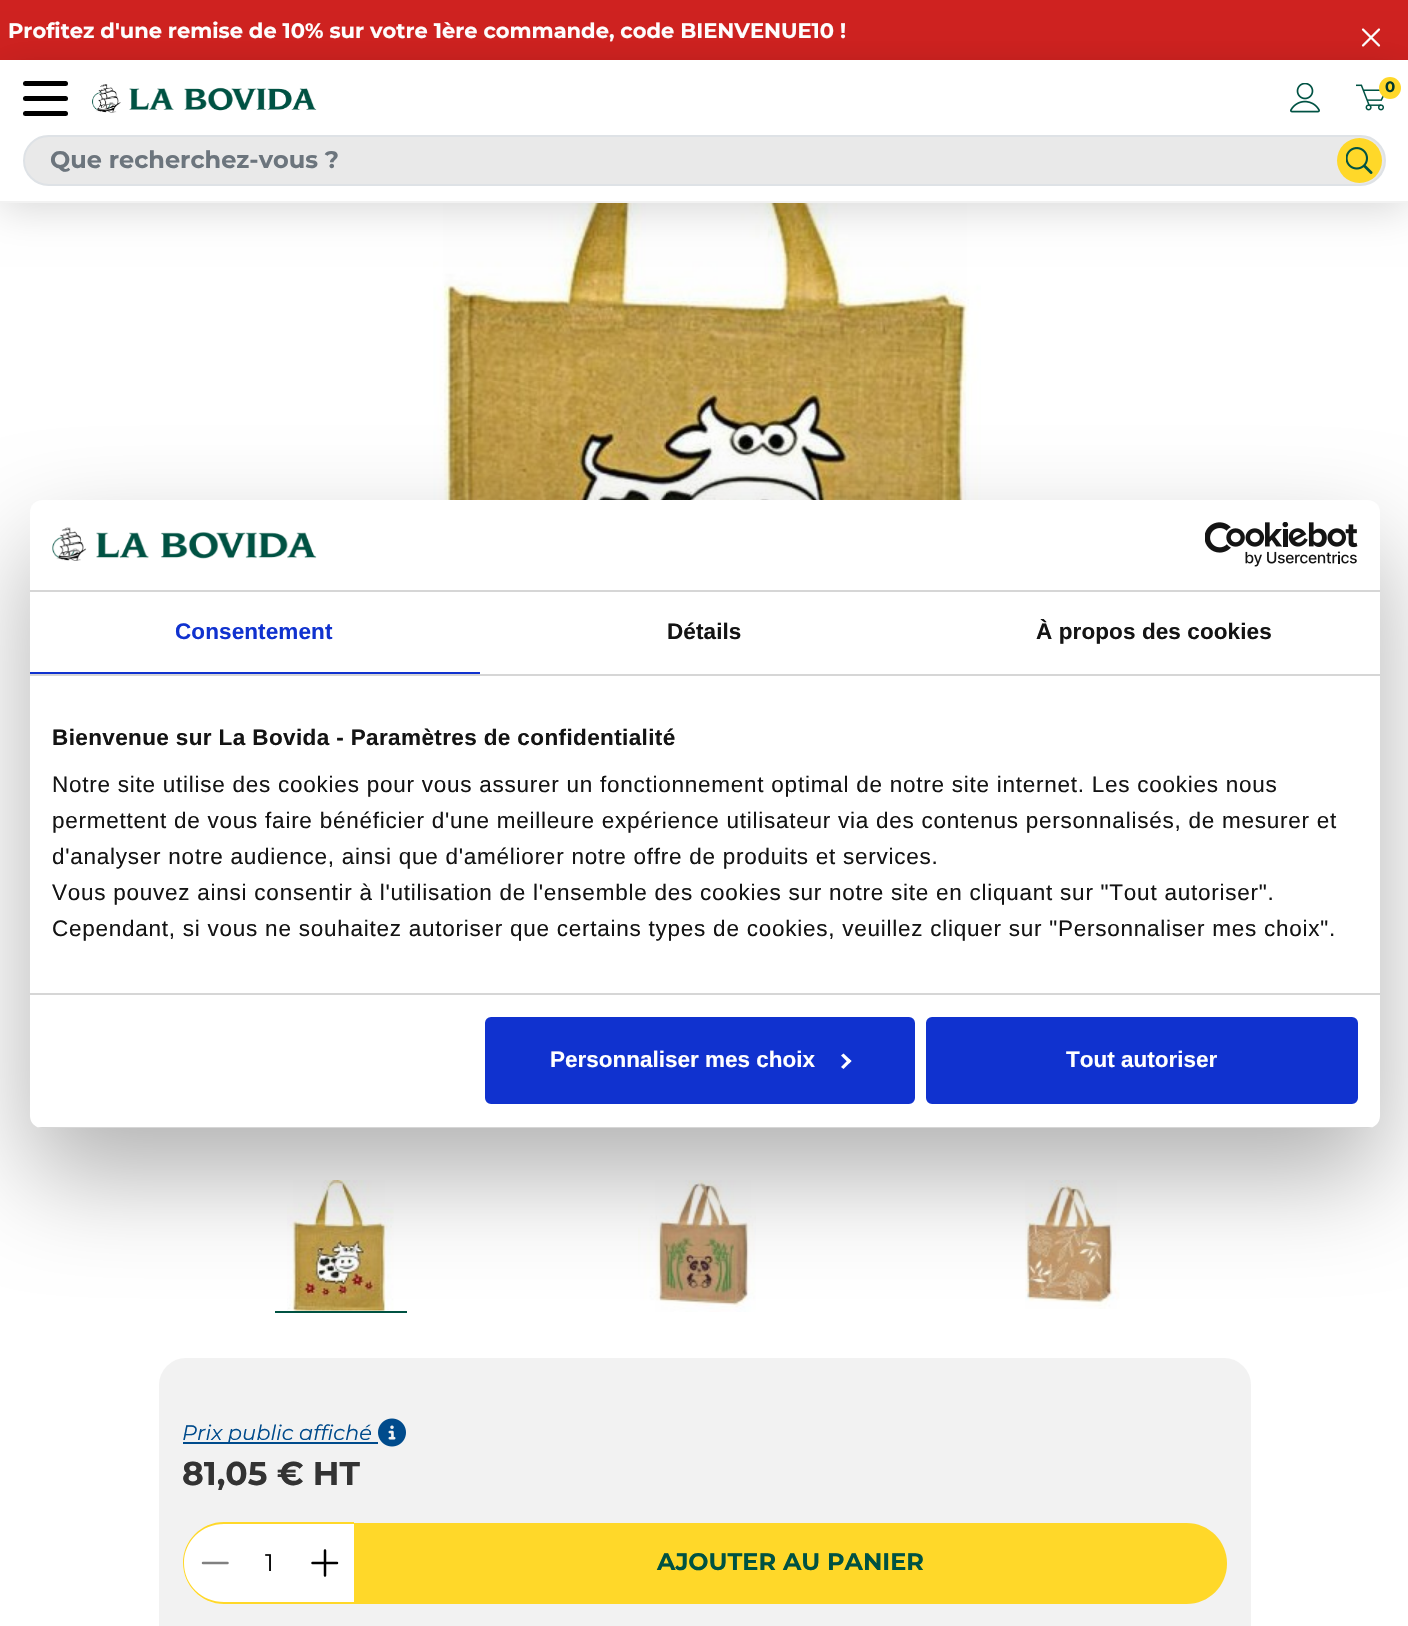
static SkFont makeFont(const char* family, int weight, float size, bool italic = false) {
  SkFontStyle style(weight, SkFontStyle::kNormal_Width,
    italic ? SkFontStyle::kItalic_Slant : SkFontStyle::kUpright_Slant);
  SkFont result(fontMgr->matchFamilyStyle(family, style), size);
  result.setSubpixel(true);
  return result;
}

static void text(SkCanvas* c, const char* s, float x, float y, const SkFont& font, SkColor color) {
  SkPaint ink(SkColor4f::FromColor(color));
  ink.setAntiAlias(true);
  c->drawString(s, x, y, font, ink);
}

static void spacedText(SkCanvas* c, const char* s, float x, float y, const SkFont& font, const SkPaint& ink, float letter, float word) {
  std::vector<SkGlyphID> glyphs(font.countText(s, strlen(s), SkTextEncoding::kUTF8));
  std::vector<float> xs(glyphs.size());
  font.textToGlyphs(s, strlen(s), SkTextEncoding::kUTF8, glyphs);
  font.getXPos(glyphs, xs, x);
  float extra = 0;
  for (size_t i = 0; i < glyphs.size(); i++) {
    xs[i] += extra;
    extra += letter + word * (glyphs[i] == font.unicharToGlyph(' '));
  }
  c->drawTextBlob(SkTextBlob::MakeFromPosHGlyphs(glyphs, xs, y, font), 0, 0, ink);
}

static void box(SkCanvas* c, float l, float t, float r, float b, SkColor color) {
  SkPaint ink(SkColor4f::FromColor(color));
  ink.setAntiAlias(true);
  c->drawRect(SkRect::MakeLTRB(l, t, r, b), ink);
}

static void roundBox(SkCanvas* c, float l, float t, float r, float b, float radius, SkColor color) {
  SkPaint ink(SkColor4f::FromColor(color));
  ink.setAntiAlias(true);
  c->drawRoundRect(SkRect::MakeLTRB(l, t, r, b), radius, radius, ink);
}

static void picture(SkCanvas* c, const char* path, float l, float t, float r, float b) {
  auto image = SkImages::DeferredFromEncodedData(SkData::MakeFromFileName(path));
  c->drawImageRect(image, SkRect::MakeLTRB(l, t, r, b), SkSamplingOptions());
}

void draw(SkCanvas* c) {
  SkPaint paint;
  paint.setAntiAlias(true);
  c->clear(0xffffffff);
  box(c, 0, 0, 1408, 60, 0xffcf2220);
  SkFont face1 = makeFont("Montserrat", 700, 21);
  text(c, "Profitez d'une remise de 10% sur votre 1ère commande, code BIENVENUE10 !", 8, 38, face1, 0xffffffff);
  picture(c, "img_01.png", 1361, 28, 1381, 47);
  picture(c, "img_08.png", 433, 203, 981, 500);
  paint.setColor(0x26000000);
  paint.setMaskFilter(SkMaskFilter::MakeBlur(kNormal_SkBlurStyle, 19));
  c->drawRect(SkRect::MakeLTRB(0, 68, 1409, 210), paint);
  paint.setMaskFilter(nullptr);
  box(c, 0, 60, 1408, 201, 0xffffffff);
  box(c, 0, 201, 1408, 203, 0xfff2f2f2);
  roundBox(c, 23, 81, 68, 86, 2.5f, 0xff000000);
  roundBox(c, 23, 96, 68, 101, 2.5f, 0xff000000);
  roundBox(c, 23, 111, 68, 116, 2.5f, 0xff000000);
  picture(c, "img_02.png", 92, 84, 317, 113);
  picture(c, "img_03.png", 1290, 83, 1320, 113);
  picture(c, "img_04.png", 1356, 84, 1384, 111);
  paint.setColor(0xffffd829);
  c->drawCircle(1390, 88, 11, paint);
  SkFont face2 = makeFont("Montserrat", 700, 15);
  text(c, "0", 1385, 92, face2, 0xff00382e);
  paint.setColor(0xffe9e9e9);
  c->drawRoundRect(SkRect::MakeLTRB(24, 136, 1385, 185), 24.5f, 24.5f, paint);
  paint.setStyle(SkPaint::kStroke_Style);
  paint.setStrokeWidth(2);
  paint.setColor(0xffdee2e6);
  c->drawRoundRect(SkRect::MakeLTRB(24, 136, 1385, 185), 24.5f, 24.5f, paint);
  SkFont face3 = makeFont("Montserrat", 700, 24);
  text(c, "Que recherchez-vous ?", 50, 168, face3, 0xff6c757d);
  paint.setStyle(SkPaint::kFill_Style);
  paint.setColor(0xffffd829);
  c->drawCircle(1359.5f, 160.5f, 22.5f, paint);
  picture(c, "img_05.png", 1346, 147, 1373, 174);
  box(c, 275, 1311, 407, 1313, 0xff005242);
  picture(c, "img_09.png", 287, 1180, 394, 1311);
  picture(c, "img_10.png", 638, 1180, 756, 1312);
  picture(c, "img_11.png", 1025, 1180, 1120, 1309);
  paint.setColor(0x4d000000);
  paint.setMaskFilter(SkMaskFilter::MakeBlur(kNormal_SkBlurStyle, 51));
  c->drawRoundRect(SkRect::MakeLTRB(30, 548, 1380, 1176), 12, 12, paint);
  paint.setMaskFilter(nullptr);
  roundBox(c, 30, 500, 1380, 1128, 12, 0xffffffff);
  box(c, 30, 590, 1380, 592, 0xffd6d6d6);
  picture(c, "img_06.png", 52, 527, 317, 561);
  picture(c, "img_07.png", 1205, 522, 1358, 567);
  box(c, 30, 674, 1380, 676, 0xffd6d6d6);
  box(c, 30, 672, 480, 674, 0xff1032cf);
  SkFont face4 = makeFont("Liberation Sans", 700, 22.5f);
  paint.setColor(0xff1032cf);
  spacedText(c, "Consentement", 175, 639, face4, paint, 0.1f, 0);
  paint.setColor(0xff141414);
  spacedText(c, "Détails", 667, 639, face4, paint, 0.1f, 0);
  spacedText(c, "À propos des cookies", 1036, 639, face4, paint, 0.1f, 0);
  box(c, 30, 993, 1380, 995, 0xffd6d6d6);
  spacedText(c, "Bienvenue sur La Bovida - Paramètres de confidentialité", 52, 745, face4, paint, 0.38f, 0);
  SkFont face5 = makeFont("Liberation Sans", 400, 22.5f);
  spacedText(c, "Notre site utilise des cookies pour vous assurer un fonctionnement optimal de notre site internet. Les cookies nous", 52, 792, face5, paint, 0.75f, 0);
  spacedText(c, "permettent de vous faire bénéficier d'une meilleure expérience utilisateur via des contenus personnalisés, de mesurer et", 52, 828, face5, paint, 0.75f, 0);
  spacedText(c, "d'analyser notre audience, ainsi que d'améliorer notre offre de produits et services.", 52, 864, face5, paint, 0.75f, 0);
  spacedText(c, "Vous pouvez ainsi consentir à l'utilisation de l'ensemble des cookies sur notre site en cliquant sur \"Tout autoriser\".", 52, 900, face5, paint, 0.75f, 0);
  spacedText(c, "Cependant, si vous ne souhaitez autoriser que certains types de cookies, veuillez cliquer sur \"Personnaliser mes choix\".", 52, 936, face5, paint, 0.75f, 0);
  c->save();
  c->clipPath(SkPathBuilder().moveTo(42, 500).lineTo(1368, 500).cubicTo(1374.5f, 500, 1380, 505.5f, 1380, 512).lineTo(1380, 1116).cubicTo(1380, 1122.5f, 1374.5f, 1128, 1368, 1128).lineTo(42, 1128).cubicTo(35.5f, 1128, 30, 1122.5f, 30, 1116).lineTo(30, 512).cubicTo(30, 505.5f, 35.5f, 500, 42, 500).close().detach(), true);
  box(c, 30, 1127, 1380, 1128, 0xffd6d6d6);
  c->restore();
  paint.setColor(0xff1032cf);
  c->drawRoundRect(SkRect::MakeLTRB(486.5f, 1018.5f, 913.5f, 1102.5f), 4.5f, 4.5f, paint);
  paint.setStyle(SkPaint::kStroke_Style);
  paint.setStrokeWidth(3);
  c->drawRoundRect(SkRect::MakeLTRB(486.5f, 1018.5f, 913.5f, 1102.5f), 4.5f, 4.5f, paint);
  text(c, "Personnaliser mes choix", 550, 1067, face4, 0xffffffff);
  paint.setStyle(SkPaint::kFill_Style);
  paint.setColor(0xffffffff);
  c->drawPath(SkPathBuilder().moveTo(843.5f, 1053.5f).lineTo(851.5f, 1061).lineTo(849, 1063.5f).lineTo(841, 1055.5f).close().detach(), paint);
  c->drawPath(SkPathBuilder().moveTo(849, 1059).lineTo(851.5f, 1061).lineTo(843.5f, 1069).lineTo(841, 1067).close().detach(), paint);
  paint.setColor(0xff1032cf);
  c->drawRoundRect(SkRect::MakeLTRB(927.5f, 1018.5f, 1356.5f, 1102.5f), 4.5f, 4.5f, paint);
  paint.setStyle(SkPaint::kStroke_Style);
  c->drawRoundRect(SkRect::MakeLTRB(927.5f, 1018.5f, 1356.5f, 1102.5f), 4.5f, 4.5f, paint);
  text(c, "Tout autoriser", 1066, 1067, face4, 0xffffffff);
  roundBox(c, 159, 1358, 1251, 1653, 27, 0xfff2f2f2);
  box(c, 183, 1442, 378, 1444, 0xff004b8c);
  SkFont face6 = makeFont("Montserrat", 400, 21, true);
  text(c, "Prix public affiché", 182, 1440, face6, 0xff004b8c);
  picture(c, "img_12.png", 378, 1418, 406, 1447);
  SkFont face7 = makeFont("Montserrat", 700, 33);
  text(c, "81,05 € HT", 182, 1485, face7, 0xff333333);
  paint.setStyle(SkPaint::kFill_Style);
  paint.setColor(0xffffffff);
  c->drawPath(SkPathBuilder().moveTo(223.5f, 1523).lineTo(354, 1523).lineTo(354, 1604).lineTo(223.5f, 1604).cubicTo(201, 1604, 183, 1586, 183, 1563.5f).cubicTo(183, 1541, 201, 1523, 223.5f, 1523).close().detach(), paint);
  paint.setColor(0xffffd829);
  c->drawPath(SkPathBuilder(SkPathFillType::kEvenOdd).moveTo(224, 1522).lineTo(354, 1522).lineTo(354, 1604).lineTo(224, 1604).cubicTo(201, 1604, 183, 1585, 183, 1563).cubicTo(183, 1541, 201, 1522, 224, 1522).close().moveTo(224, 1524).lineTo(354, 1524).lineTo(354, 1602).lineTo(224, 1602).cubicTo(202, 1602, 184, 1585, 184, 1563).cubicTo(184, 1541, 202, 1524, 224, 1524).close().detach(), paint);
  paint.setStyle(SkPaint::kStroke_Style);
  paint.setStrokeWidth(2.5f);
  paint.setStrokeCap(SkPaint::kRound_Cap);
  paint.setStrokeJoin(SkPaint::kRound_Join);
  paint.setColor(0xff808080);
  c->drawPath(SkPathBuilder().moveTo(227.5f, 1563).lineTo(203, 1563).detach(), paint);
  SkFont face8 = makeFont("Montserrat", 400, 24);
  text(c, "1", 265, 1571, face8, 0xff000000);
  paint.setColor(0xff000000);
  c->drawPath(SkPathBuilder().moveTo(325, 1550.5f).lineTo(325, 1575.5f).moveTo(337, 1563).lineTo(312.5f, 1563).detach(), paint);
  paint.setStyle(SkPaint::kFill_Style);
  paint.setColor(0xffffd829);
  c->drawPath(SkPathBuilder().moveTo(354, 1523).lineTo(1186.5f, 1523).cubicTo(1209, 1523, 1227, 1541, 1227, 1563.5f).cubicTo(1227, 1586, 1209, 1604, 1186.5f, 1604).lineTo(354, 1604).close().detach(), paint);
  text(c, "AJOUTER AU PANIER", 657, 1570, face3, 0xff005242);
}
